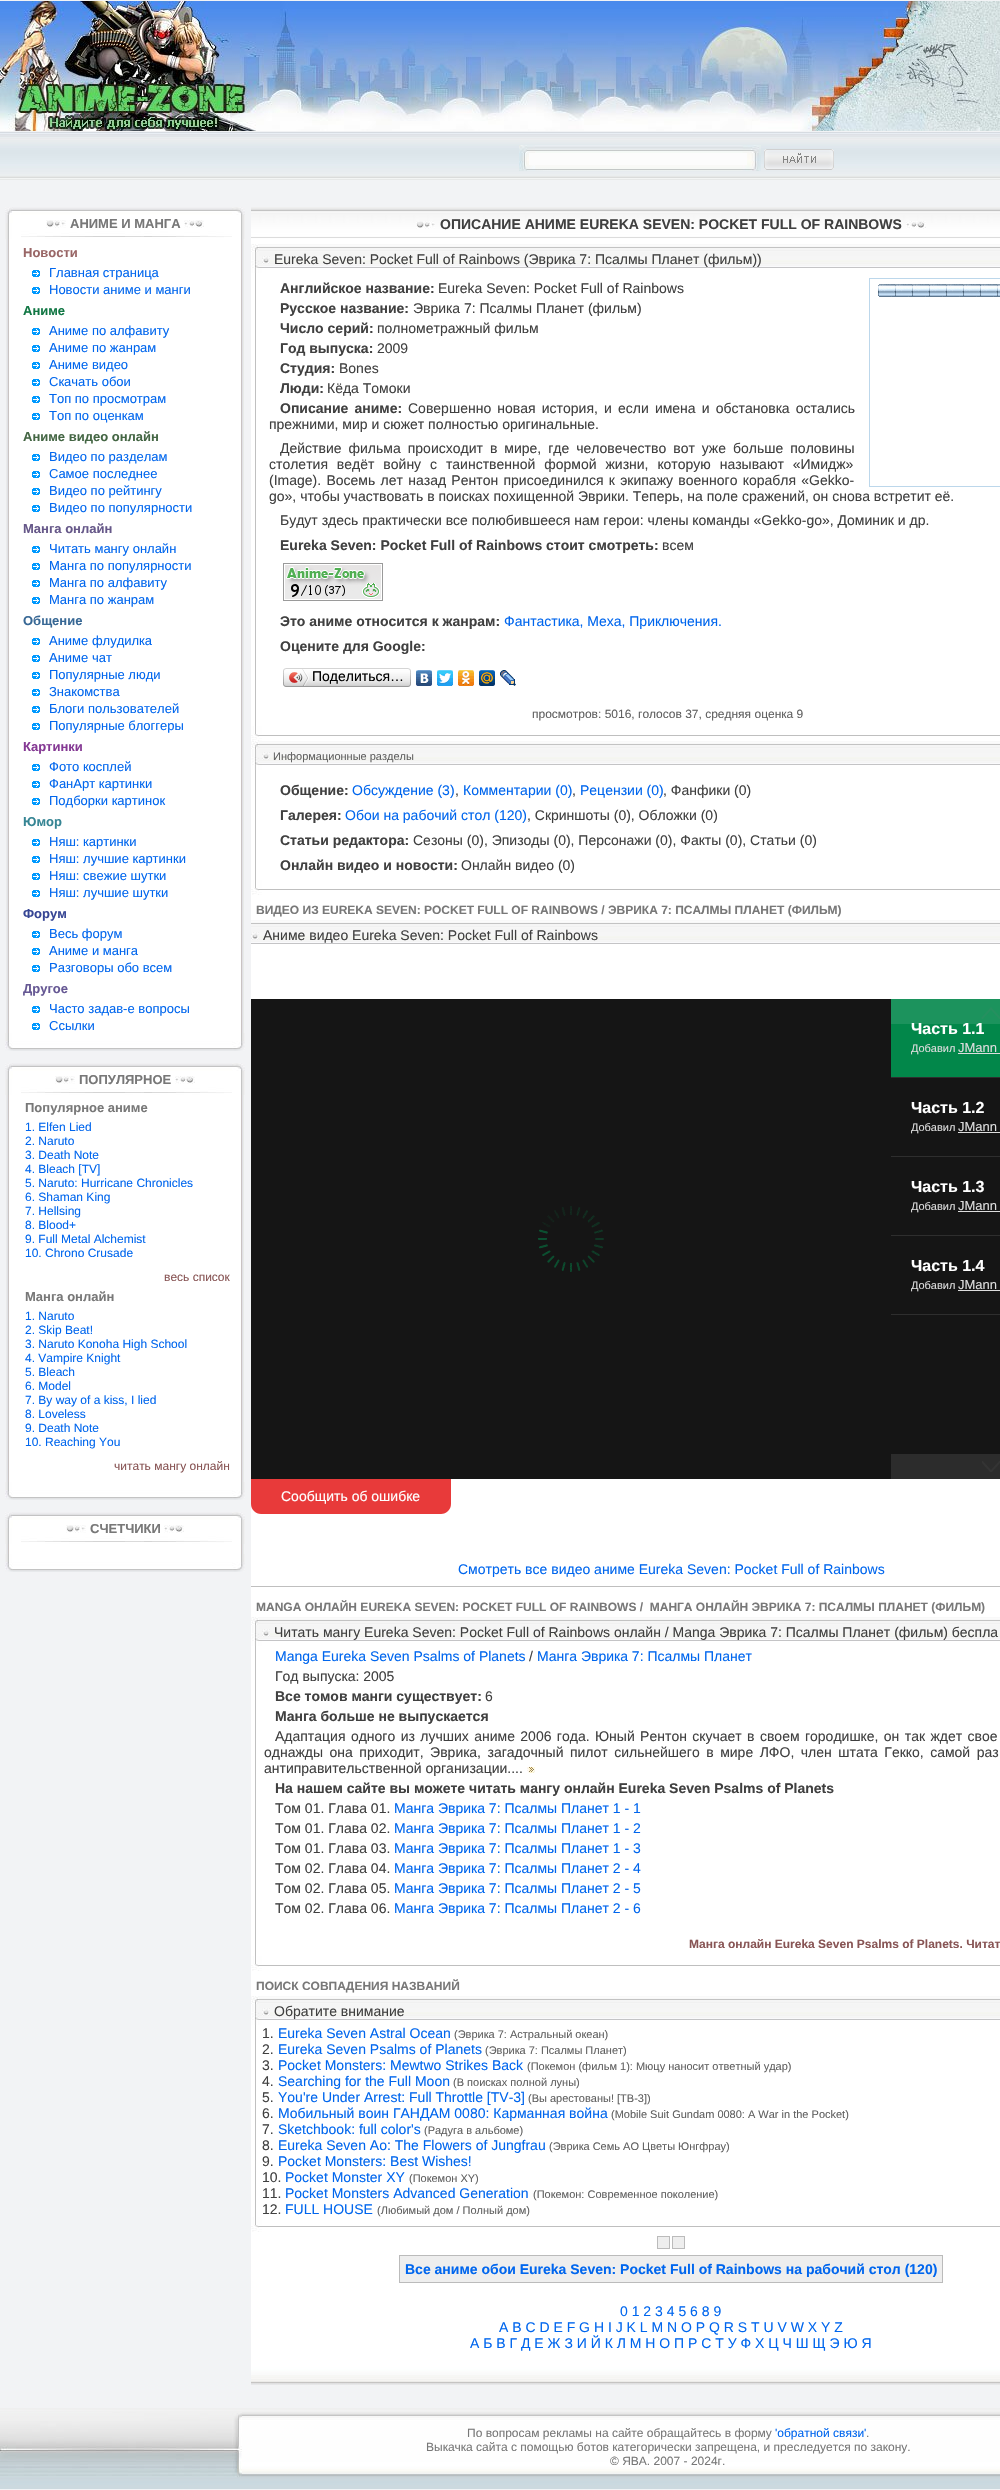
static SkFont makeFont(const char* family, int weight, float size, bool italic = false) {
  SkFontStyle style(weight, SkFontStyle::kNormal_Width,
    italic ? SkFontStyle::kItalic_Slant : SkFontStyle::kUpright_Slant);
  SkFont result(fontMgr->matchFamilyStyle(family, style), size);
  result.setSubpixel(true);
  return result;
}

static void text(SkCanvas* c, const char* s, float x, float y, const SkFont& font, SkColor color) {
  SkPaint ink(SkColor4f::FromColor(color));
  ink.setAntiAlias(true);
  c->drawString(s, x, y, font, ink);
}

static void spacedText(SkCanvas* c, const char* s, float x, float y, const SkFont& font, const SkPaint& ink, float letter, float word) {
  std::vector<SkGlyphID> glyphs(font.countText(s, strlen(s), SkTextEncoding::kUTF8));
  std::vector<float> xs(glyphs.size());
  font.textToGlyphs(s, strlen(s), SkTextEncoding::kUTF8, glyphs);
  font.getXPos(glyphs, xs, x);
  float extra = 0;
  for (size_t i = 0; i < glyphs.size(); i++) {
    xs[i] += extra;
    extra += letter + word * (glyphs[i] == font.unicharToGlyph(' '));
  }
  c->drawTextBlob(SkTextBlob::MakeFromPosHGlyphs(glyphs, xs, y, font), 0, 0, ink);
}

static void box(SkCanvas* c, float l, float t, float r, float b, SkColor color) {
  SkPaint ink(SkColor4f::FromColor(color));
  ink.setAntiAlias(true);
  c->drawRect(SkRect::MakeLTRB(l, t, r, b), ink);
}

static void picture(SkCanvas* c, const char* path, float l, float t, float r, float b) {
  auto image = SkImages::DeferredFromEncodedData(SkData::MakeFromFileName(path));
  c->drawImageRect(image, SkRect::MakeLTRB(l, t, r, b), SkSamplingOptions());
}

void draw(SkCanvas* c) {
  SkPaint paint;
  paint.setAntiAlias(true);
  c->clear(0xfff2f3f5);
  picture(c, "img_01.png", 0, 1, 264, 131);
  picture(c, "img_02.png", 264, 1, 980, 131);
  picture(c, "img_03.png", 980, 1, 1000, 131);
  picture(c, "img_04.png", 0, 132, 1000, 180);
  picture(c, "img_05.png", 519, 145, 761, 171);
  box(c, 529, 153, 747, 165, 0xfffcfcfc);
  picture(c, "img_06.png", 764, 149, 834, 170);
  picture(c, "img_07.png", 5, 207, 245, 239);
  picture(c, "img_08.png", 46, 220, 66, 228);
  SkFont face1 = makeFont("Liberation Sans", 700, 13);
  text(c, "АНИМЕ И МАНГА", 70, 228, face1, 0xff787878);
  picture(c, "img_09.png", 184, 220, 204, 228);
  picture(c, "img_10.png", 6, 239, 244, 1033);
  text(c, "Новости", 23, 257, face1, 0xff996666);
  picture(c, "img_11.png", 32, 270, 40, 277);
  SkFont face2 = makeFont("Liberation Sans", 400, 13);
  text(c, "Главная страница", 49, 277, face2, 0xff0066ee);
  picture(c, "img_11.png", 32, 287, 40, 294);
  text(c, "Новости аниме и манги", 49, 294, face2, 0xff0066ee);
  text(c, "Аниме", 23, 315, face1, 0xff117744);
  picture(c, "img_11.png", 32, 328, 40, 335);
  text(c, "Аниме по алфавиту", 49, 335, face2, 0xff0066ee);
  picture(c, "img_11.png", 32, 345, 40, 352);
  text(c, "Аниме по жанрам", 49, 352, face2, 0xff0066ee);
  picture(c, "img_11.png", 32, 362, 40, 369);
  text(c, "Аниме видео", 49, 369, face2, 0xff0066ee);
  picture(c, "img_11.png", 32, 379, 40, 386);
  text(c, "Скачать обои", 49, 386, face2, 0xff0066ee);
  picture(c, "img_11.png", 32, 396, 40, 403);
  text(c, "Топ по просмотрам", 49, 403, face2, 0xff0066ee);
  picture(c, "img_11.png", 32, 413, 40, 420);
  text(c, "Топ по оценкам", 49, 420, face2, 0xff0066ee);
  text(c, "Аниме видео онлайн", 23, 441, face1, 0xff446644);
  picture(c, "img_11.png", 32, 454, 40, 461);
  text(c, "Видео по разделам", 49, 461, face2, 0xff0066ee);
  picture(c, "img_11.png", 32, 471, 40, 478);
  text(c, "Самое последнее", 49, 478, face2, 0xff0066ee);
  picture(c, "img_11.png", 32, 488, 40, 495);
  text(c, "Видео по рейтингу", 49, 495, face2, 0xff0066ee);
  picture(c, "img_11.png", 32, 505, 40, 512);
  text(c, "Видео по популярности", 49, 512, face2, 0xff0066ee);
  text(c, "Манга онлайн", 23, 533, face1, 0xff665889);
  picture(c, "img_11.png", 32, 546, 40, 553);
  text(c, "Читать мангу онлайн", 49, 553, face2, 0xff0066ee);
  picture(c, "img_11.png", 32, 563, 40, 570);
  text(c, "Манга по популярности", 49, 570, face2, 0xff0066ee);
  picture(c, "img_11.png", 32, 580, 40, 587);
  text(c, "Манга по алфавиту", 49, 587, face2, 0xff0066ee);
  picture(c, "img_11.png", 32, 597, 40, 604);
  text(c, "Манга по жанрам", 49, 604, face2, 0xff0066ee);
  text(c, "Общение", 23, 625, face1, 0xff386895);
  picture(c, "img_11.png", 32, 638, 40, 645);
  text(c, "Аниме флудилка", 49, 645, face2, 0xff0066ee);
  picture(c, "img_11.png", 32, 655, 40, 662);
  text(c, "Аниме чат", 49, 662, face2, 0xff0066ee);
  picture(c, "img_11.png", 32, 672, 40, 679);
  text(c, "Популярные люди", 49, 679, face2, 0xff0066ee);
  picture(c, "img_11.png", 32, 689, 40, 696);
  text(c, "Знакомства", 49, 696, face2, 0xff0066ee);
  picture(c, "img_11.png", 32, 706, 40, 713);
  text(c, "Блоги пользователей", 49, 713, face2, 0xff0066ee);
  picture(c, "img_11.png", 32, 723, 40, 730);
  text(c, "Популярные блоггеры", 49, 730, face2, 0xff0066ee);
  text(c, "Картинки", 23, 751, face1, 0xff853994);
  picture(c, "img_11.png", 32, 764, 40, 771);
  text(c, "Фото косплей", 49, 771, face2, 0xff0066ee);
  picture(c, "img_11.png", 32, 781, 40, 788);
  text(c, "ФанАрт картинки", 49, 788, face2, 0xff0066ee);
  picture(c, "img_11.png", 32, 798, 40, 805);
  text(c, "Подборки картинок", 49, 805, face2, 0xff0066ee);
  text(c, "Юмор", 23, 826, face1, 0xff368594);
  picture(c, "img_11.png", 32, 839, 40, 846);
  text(c, "Няш: картинки", 49, 846, face2, 0xff0066ee);
  picture(c, "img_11.png", 32, 856, 40, 863);
  text(c, "Няш: лучшие картинки", 49, 863, face2, 0xff0066ee);
  picture(c, "img_11.png", 32, 873, 40, 880);
  text(c, "Няш: свежие шутки", 49, 880, face2, 0xff0066ee);
  picture(c, "img_11.png", 32, 890, 40, 897);
  text(c, "Няш: лучшие шутки", 49, 897, face2, 0xff0066ee);
  text(c, "Форум", 23, 918, face1, 0xff364594);
  picture(c, "img_11.png", 32, 931, 40, 938);
  text(c, "Весь форум", 49, 938, face2, 0xff0066ee);
  picture(c, "img_11.png", 32, 948, 40, 955);
  text(c, "Аниме и манга", 49, 955, face2, 0xff0066ee);
  picture(c, "img_11.png", 32, 965, 40, 972);
  text(c, "Разговоры обо всем", 49, 972, face2, 0xff0066ee);
  text(c, "Другое", 23, 993, face1, 0xff665894);
  picture(c, "img_11.png", 32, 1006, 40, 1013);
  text(c, "Часто задав-е вопросы", 49, 1013, face2, 0xff0066ee);
  picture(c, "img_11.png", 32, 1023, 40, 1030);
  text(c, "Ссылки", 49, 1030, face2, 0xff0066ee);
  picture(c, "img_12.png", 5, 1033, 245, 1051);
  picture(c, "img_07.png", 5, 1063, 245, 1095);
  picture(c, "img_08.png", 55, 1076, 75, 1084);
  text(c, "ПОПУЛЯРНОЕ", 79, 1084, face1, 0xff787878);
  picture(c, "img_09.png", 175, 1076, 195, 1084);
  picture(c, "img_13.png", 6, 1095, 244, 1482);
  text(c, "Популярное аниме", 25, 1112, face1, 0xff787878);
  SkFont face3 = makeFont("Liberation Sans", 400, 12);
  text(c, "1. Elfen Lied", 25, 1131, face3, 0xff0066ee);
  text(c, "2. Naruto", 25, 1145, face3, 0xff0066ee);
  text(c, "3. Death Note", 25, 1159, face3, 0xff0066ee);
  text(c, "4. Bleach [TV]", 25, 1173, face3, 0xff0066ee);
  text(c, "5. Naruto: Hurricane Chronicles", 25, 1187, face3, 0xff0066ee);
  text(c, "6. Shaman King", 25, 1201, face3, 0xff0066ee);
  text(c, "7. Hellsing", 25, 1215, face3, 0xff0066ee);
  text(c, "8. Blood+", 25, 1229, face3, 0xff0066ee);
  text(c, "9. Full Metal Alchemist", 25, 1243, face3, 0xff0066ee);
  text(c, "10. Chrono Crusade", 25, 1257, face3, 0xff0066ee);
  text(c, "весь список", 164, 1281, face3, 0xff885555);
  text(c, "Манга онлайн", 25, 1301, face1, 0xff787878);
  text(c, "1. Naruto", 25, 1320, face3, 0xff0066ee);
  text(c, "2. Skip Beat!", 25, 1334, face3, 0xff0066ee);
  text(c, "3. Naruto Konoha High School", 25, 1348, face3, 0xff0066ee);
  text(c, "4. Vampire Knight", 25, 1362, face3, 0xff0066ee);
  text(c, "5. Bleach", 25, 1376, face3, 0xff0066ee);
  text(c, "6. Model", 25, 1390, face3, 0xff0066ee);
  text(c, "7. By way of a kiss, I lied", 25, 1404, face3, 0xff0066ee);
  text(c, "8. Loveless", 25, 1418, face3, 0xff0066ee);
  text(c, "9. Death Note", 25, 1432, face3, 0xff0066ee);
  text(c, "10. Reaching You", 25, 1446, face3, 0xff0066ee);
  text(c, "читать мангу онлайн", 114, 1470, face3, 0xff885555);
  picture(c, "img_12.png", 5, 1482, 245, 1500);
  picture(c, "img_07.png", 5, 1512, 245, 1544);
  picture(c, "img_08.png", 66, 1525, 86, 1533);
  text(c, "СЧЕТЧИКИ", 90, 1533, face1, 0xff787878);
  picture(c, "img_09.png", 164, 1525, 184, 1533);
  picture(c, "img_14.png", 6, 1544, 244, 1554);
  picture(c, "img_12.png", 5, 1554, 245, 1572);
  picture(c, "img_15.png", 251, 207, 1000, 239);
  picture(c, "img_16.png", 416, 221, 435, 229);
  SkFont face4 = makeFont("Liberation Sans", 700, 14);
  text(c, "ОПИСАНИЕ АНИМЕ EUREKA SEVEN: POCKET FULL OF RAINBOWS", 440, 229, face4, 0xff404040);
  picture(c, "img_09.png", 906, 221, 926, 229);
  box(c, 251, 239, 1000, 2367, 0xffffffff);
  picture(c, "img_17.png", 251, 244, 262, 273);
  picture(c, "img_18.png", 262, 244, 1000, 268);
  picture(c, "img_19.png", 262, 256, 270, 264);
  SkFont face5 = makeFont("Liberation Sans", 400, 14);
  text(c, "Eureka Seven: Pocket Full of Rainbows (Эврика 7: Псалмы Планет (фильм))", 274, 264, face5, 0xff404040);
  box(c, 255, 273, 256, 726, 0xffc0c0c0);
  text(c, "Английское название:", 280, 293, face4, 0xff404040);
  text(c, "Eureka Seven: Pocket Full of Rainbows", 438, 293, face5, 0xff404040);
  paint.setStyle(SkPaint::kStroke_Style);
  paint.setStrokeWidth(1);
  paint.setColor(0xffbcd7eb);
  c->drawRect(SkRect::MakeLTRB(869.5f, 278.5f, 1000.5f, 486.5f), paint);
  picture(c, "img_20.png", 878, 284, 1000, 297);
  text(c, "Русское название:", 280, 313, face4, 0xff404040);
  text(c, "Эврика 7: Псалмы Планет (фильм)", 413, 313, face5, 0xff404040);
  text(c, "Число серий:", 280, 333, face4, 0xff404040);
  text(c, "полнометражный фильм", 377, 333, face5, 0xff404040);
  text(c, "Год выпуска:", 280, 353, face4, 0xff404040);
  text(c, "2009", 377, 353, face5, 0xff404040);
  text(c, "Студия:", 280, 373, face4, 0xff404040);
  text(c, "Bones", 339, 373, face5, 0xff404040);
  text(c, "Люди:", 280, 393, face4, 0xff404040);
  text(c, "Кёда Томоки", 327, 393, face5, 0xff404040);
  paint.setStyle(SkPaint::kFill_Style);
  paint.setColor(0xff404040);
  spacedText(c, "Описание аниме:", 280, 413, face4, paint, 0, 2.25f);
  spacedText(c, "Совершенно новая история, и если имена и обстановка остались", 408, 413, face5, paint, 0, 2.25f);
  text(c, "прежними, мир и сюжет полностью оригинальные.", 269, 429, face5, 0xff404040);
  spacedText(c, "Действие фильма происходит в мире, где человечество вот уже больше половины", 280, 453, face5, paint, 0, 3.1f);
  spacedText(c, "столетия ведёт войну с таинственной формой жизни, которую называют «Имидж»", 269, 469, face5, paint, 0, 5);
  spacedText(c, "(Image). Восемь лет назад Рентон присоединился к экипажу военного корабля «Gekko-", 269, 485, face5, paint, 0, 1.4f);
  text(c, "go», чтобы участвовать в поисках похищенной Эврики. Теперь, на поле сражений, он снова встретит её.", 269, 501, face5, 0xff404040);
  text(c, "Будут здесь практически все полюбившееся нам герои: члены команды «Gekko-go», Доминик и др.", 280, 525, face5, 0xff404040);
  text(c, "Eureka Seven: Pocket Full of Rainbows стоит смотреть:", 280, 550, face4, 0xff404040);
  text(c, "всем", 662, 550, face5, 0xff404040);
  picture(c, "img_21.png", 283, 563, 383, 601);
  text(c, "Это аниме относится к жанрам:", 280, 626, face4, 0xff404040);
  text(c, "Фантастика, Меха, Приключения.", 504, 626, face5, 0xff0066ee);
  text(c, "Оцените для Google:", 280, 651, face4, 0xff404040);
  picture(c, "img_22.png", 286, 668, 408, 687);
  picture(c, "img_23.png", 283, 668, 286, 687);
  picture(c, "img_24.png", 289, 669, 309, 686);
  text(c, "Поделиться…", 312, 681, face5, 0xff000000);
  picture(c, "img_25.png", 408, 668, 411, 687);
  picture(c, "img_26.png", 416, 670, 432, 686);
  picture(c, "img_27.png", 437, 670, 453, 686);
  picture(c, "img_28.png", 458, 670, 474, 686);
  picture(c, "img_29.png", 479, 670, 495, 686);
  picture(c, "img_30.png", 500, 670, 516, 686);
  text(c, "просмотров: 5016, голосов 37, средняя оценка 9", 532, 718, face3, 0xff606060);
  picture(c, "img_31.png", 251, 726, 262, 741);
  box(c, 262, 735, 1000, 736, 0xffbfbfbf);
  picture(c, "img_17.png", 251, 741, 262, 770);
  picture(c, "img_18.png", 262, 741, 1000, 765);
  picture(c, "img_19.png", 262, 752, 270, 760);
  SkFont face6 = makeFont("Liberation Sans", 400, 11);
  text(c, "Информационные разделы", 273, 760, face6, 0xff606060);
  box(c, 255, 770, 256, 880, 0xffc0c0c0);
  text(c, "Общение:", 280, 795, face4, 0xff404040);
  text(c, "Обсуждение (3)", 352, 795, face5, 0xff0066ee);
  text(c, ",", 455, 795, face5, 0xff404040);
  text(c, "Комментарии (0)", 463, 795, face5, 0xff0066ee);
  text(c, ",", 572, 795, face5, 0xff404040);
  text(c, "Рецензии (0)", 580, 795, face5, 0xff0066ee);
  text(c, ", Фанфики (0)", 663, 795, face5, 0xff404040);
  text(c, "Галерея:", 280, 820, face4, 0xff404040);
  text(c, "Обои на рабочий стол (120)", 345, 820, face5, 0xff0066ee);
  text(c, ", Скриншоты (0), Обложки (0)", 527, 820, face5, 0xff404040);
  text(c, "Статьи редактора:", 280, 845, face4, 0xff404040);
  text(c, "Сезоны (0), Эпизоды (0), Персонажи (0), Факты (0), Статьи (0)", 413, 845, face5, 0xff404040);
  text(c, "Онлайн видео и новости:", 280, 870, face4, 0xff404040);
  text(c, "Онлайн видео (0)", 461, 870, face5, 0xff404040);
  picture(c, "img_31.png", 251, 880, 262, 895);
  box(c, 262, 889, 1000, 890, 0xffbfbfbf);
  SkFont face7 = makeFont("Liberation Sans", 700, 12);
  text(c, "ВИДЕО ИЗ EUREKA SEVEN: POCKET FULL OF RAINBOWS / ЭВРИКА 7: ПСАЛМЫ ПЛАНЕТ (ФИЛЬМ)", 256, 914, face7, 0xff787878);
  picture(c, "img_32.png", 251, 920, 1000, 944);
  picture(c, "img_19.png", 251, 932, 259, 940);
  text(c, "Аниме видео Eureka Seven: Pocket Full of Rainbows", 263, 940, face5, 0xff404040);
  box(c, 251, 999, 1000, 1479, 0xff151515);
  box(c, 891, 999, 1000, 1077, 0xff02874a);
  box(c, 891, 999, 1000, 1024, 0x1affffff);
  picture(c, "img_33.png", 981, 1007, 1000, 1019);
  box(c, 891, 1077, 1000, 1078, 0xff2e2e2e);
  SkFont face8 = makeFont("Liberation Sans", 700, 16);
  text(c, "Часть 1.1", 911, 1034, face8, 0xffffffff);
  text(c, "Добавил", 911, 1052, face6, 0xffdddddd);
  text(c, "JMann", 958, 1052, face2, 0xffdddddd);
  box(c, 958, 1053, 1000, 1054, 0xffdddddd);
  box(c, 891, 1156, 1000, 1157, 0xff2e2e2e);
  text(c, "Часть 1.2", 911, 1113, face8, 0xffffffff);
  text(c, "Добавил", 911, 1131, face6, 0xffdddddd);
  text(c, "JMann", 958, 1131, face2, 0xffdddddd);
  box(c, 958, 1132, 1000, 1133, 0xffdddddd);
  box(c, 891, 1235, 1000, 1236, 0xff2e2e2e);
  text(c, "Часть 1.3", 911, 1192, face8, 0xffffffff);
  text(c, "Добавил", 911, 1210, face6, 0xffdddddd);
  text(c, "JMann", 958, 1210, face2, 0xffdddddd);
  box(c, 958, 1211, 1000, 1212, 0xffdddddd);
  box(c, 891, 1314, 1000, 1315, 0xff2e2e2e);
  text(c, "Часть 1.4", 911, 1271, face8, 0xffffffff);
  text(c, "Добавил", 911, 1289, face6, 0xffdddddd);
  text(c, "JMann", 958, 1289, face2, 0xffdddddd);
  box(c, 958, 1290, 1000, 1291, 0xffdddddd);
  box(c, 891, 1454, 1000, 1479, 0xff2c2c2c);
  picture(c, "img_34.png", 982, 1461, 1000, 1472);
  picture(c, "img_35.png", 538, 1206, 604, 1272);
  paint.setColor(0xffe83a3a);
  c->drawPath(SkPathBuilder().moveTo(251, 1479).lineTo(451, 1479).lineTo(451, 1504).cubicTo(451, 1509.5f, 446.5f, 1514, 441, 1514).lineTo(261, 1514).cubicTo(255.5f, 1514, 251, 1509.5f, 251, 1504).close().detach(), paint);
  text(c, "Сообщить об ошибке", 281, 1501, face5, 0xffffffff);
  text(c, "Смотреть все видео аниме Eureka Seven: Pocket Full of Rainbows", 458, 1574, face5, 0xff0066ee);
  box(c, 251, 1586, 1000, 1587, 0xffbfbfbf);
  text(c, "MANGA ОНЛАЙН EUREKA SEVEN: POCKET FULL OF RAINBOWS /  МАНГА ОНЛАЙН ЭВРИКА 7: ПСАЛМЫ ПЛАНЕТ (ФИЛЬМ)", 256, 1611, face7, 0xff787878);
  picture(c, "img_17.png", 251, 1617, 262, 1646);
  picture(c, "img_18.png", 262, 1617, 1000, 1641);
  picture(c, "img_19.png", 262, 1629, 270, 1637);
  text(c, "Читать мангу Eureka Seven: Pocket Full of Rainbows онлайн / Manga Эврика 7: Псалмы Планет (фильм) беспла", 274, 1637, face5, 0xff404040);
  box(c, 255, 1646, 256, 1956, 0xffc0c0c0);
  text(c, "Manga Eureka Seven Psalms of Planets", 275, 1661, face5, 0xff0066ee);
  text(c, "/", 529, 1661, face5, 0xff404040);
  text(c, "Манга Эврика 7: Псалмы Планет", 537, 1661, face5, 0xff0066ee);
  text(c, "Год выпуска: 2005", 275, 1681, face5, 0xff404040);
  text(c, "Все томов манги существует:", 275, 1701, face4, 0xff404040);
  text(c, "6", 485, 1701, face5, 0xff404040);
  text(c, "Манга больше не выпускается", 275, 1721, face4, 0xff404040);
  paint.setColor(0xff404040);
  spacedText(c, "Адаптация одного из лучших аниме 2006 года. Юный Рентон скучает в своем городишке, он так ждет свое", 275, 1741, face5, paint, 0, 1.5f);
  spacedText(c, "однажды она приходит, Эврика, загадочный пилот сильнейшего в мире ЛФО, член штата Гекко, самой раз", 264, 1757, face5, paint, 0, 2.6f);
  text(c, "антиправительственной организации....", 264, 1773, face5, 0xff404040);
  picture(c, "img_36.png", 527, 1767, 535, 1773);
  text(c, "На нашем сайте вы можете читать мангу онлайн Eureka Seven Psalms of Planets", 275, 1793, face4, 0xff404040);
  text(c, "Том 01. Глава 01.", 275, 1813, face5, 0xff404040);
  text(c, "Манга Эврика 7: Псалмы Планет 1 - 1", 394, 1813, face5, 0xff0066ee);
  text(c, "Том 01. Глава 02.", 275, 1833, face5, 0xff404040);
  text(c, "Манга Эврика 7: Псалмы Планет 1 - 2", 394, 1833, face5, 0xff0066ee);
  text(c, "Том 01. Глава 03.", 275, 1853, face5, 0xff404040);
  text(c, "Манга Эврика 7: Псалмы Планет 1 - 3", 394, 1853, face5, 0xff0066ee);
  text(c, "Том 02. Глава 04.", 275, 1873, face5, 0xff404040);
  text(c, "Манга Эврика 7: Псалмы Планет 2 - 4", 394, 1873, face5, 0xff0066ee);
  text(c, "Том 02. Глава 05.", 275, 1893, face5, 0xff404040);
  text(c, "Манга Эврика 7: Псалмы Планет 2 - 5", 394, 1893, face5, 0xff0066ee);
  text(c, "Том 02. Глава 06.", 275, 1913, face5, 0xff404040);
  text(c, "Манга Эврика 7: Псалмы Планет 2 - 6", 394, 1913, face5, 0xff0066ee);
  text(c, "Манга онлайн Eureka Seven Psalms of Planets. Читат", 689, 1948, face7, 0xff885555);
  picture(c, "img_31.png", 251, 1956, 262, 1971);
  box(c, 262, 1965, 1000, 1966, 0xffbfbfbf);
  text(c, "ПОИСК СОВПАДЕНИЯ НАЗВАНИЙ", 256, 1990, face7, 0xff787878);
  picture(c, "img_17.png", 251, 1996, 262, 2025);
  picture(c, "img_18.png", 262, 1996, 1000, 2020);
  picture(c, "img_19.png", 262, 2008, 270, 2016);
  text(c, "Обратите внимание", 274, 2016, face5, 0xff404040);
  box(c, 255, 2025, 256, 2217, 0xffc0c0c0);
  text(c, "1.", 262, 2038, face5, 0xff404040);
  text(c, "Eureka Seven Astral Ocean", 278, 2038, face5, 0xff0066ee);
  text(c, "(Эврика 7: Астральный океан)", 454, 2038, face6, 0xff606060);
  text(c, "2.", 262, 2054, face5, 0xff404040);
  text(c, "Eureka Seven Psalms of Planets", 278, 2054, face5, 0xff0066ee);
  text(c, "(Эврика 7: Псалмы Планет)", 485, 2054, face6, 0xff606060);
  text(c, "3.", 262, 2070, face5, 0xff404040);
  text(c, "Pocket Monsters: Mewtwo Strikes Back", 278, 2070, face5, 0xff0066ee);
  text(c, "(Покемон (фильм 1): Мюцу наносит ответный удар)", 527, 2070, face6, 0xff606060);
  text(c, "4.", 262, 2086, face5, 0xff404040);
  text(c, "Searching for the Full Moon", 278, 2086, face5, 0xff0066ee);
  text(c, "(В поисках полной луны)", 453, 2086, face6, 0xff606060);
  text(c, "5.", 262, 2102, face5, 0xff404040);
  text(c, "You're Under Arrest: Full Throttle [TV-3]", 278, 2102, face5, 0xff0066ee);
  text(c, "(Вы арестованы! [ТВ-3])", 528, 2102, face6, 0xff606060);
  text(c, "6.", 262, 2118, face5, 0xff404040);
  text(c, "Мобильный воин ГАНДАМ 0080: Карманная война", 278, 2118, face5, 0xff0066ee);
  text(c, "(Mobile Suit Gundam 0080: A War in the Pocket)", 611, 2118, face6, 0xff606060);
  text(c, "7.", 262, 2134, face5, 0xff404040);
  text(c, "Sketchbook: full color's", 278, 2134, face5, 0xff0066ee);
  text(c, "(Радуга в альбоме)", 424, 2134, face6, 0xff606060);
  text(c, "8.", 262, 2150, face5, 0xff404040);
  text(c, "Eureka Seven Ao: The Flowers of Jungfrau", 278, 2150, face5, 0xff0066ee);
  text(c, "(Эврика Семь АО Цветы Юнгфрау)", 549, 2150, face6, 0xff606060);
  text(c, "9.", 262, 2166, face5, 0xff404040);
  text(c, "Pocket Monsters: Best Wishes!", 278, 2166, face5, 0xff0066ee);
  text(c, "10.", 262, 2182, face5, 0xff404040);
  text(c, "Pocket Monster XY", 285, 2182, face5, 0xff0066ee);
  text(c, "(Покемон XY)", 409, 2182, face6, 0xff606060);
  text(c, "11.", 262, 2198, face5, 0xff404040);
  text(c, "Pocket Monsters Advanced Generation", 285, 2198, face5, 0xff0066ee);
  text(c, "(Покемон: Современное поколение)", 533, 2198, face6, 0xff606060);
  text(c, "12.", 262, 2214, face5, 0xff404040);
  text(c, "FULL HOUSE", 285, 2214, face5, 0xff0066ee);
  text(c, "(Любимый дом / Полный дом)", 377, 2214, face6, 0xff606060);
  picture(c, "img_31.png", 251, 2217, 262, 2232);
  box(c, 262, 2226, 1000, 2227, 0xffbfbfbf);
  paint.setColor(0xffeeeeee);
  c->drawRect(SkRect::MakeLTRB(657.5f, 2236.5f, 669.5f, 2248.5f), paint);
  paint.setStyle(SkPaint::kStroke_Style);
  paint.setColor(0xffbbbbbb);
  c->drawRect(SkRect::MakeLTRB(657.5f, 2236.5f, 669.5f, 2248.5f), paint);
  paint.setStyle(SkPaint::kFill_Style);
  paint.setColor(0xffeeeeee);
  c->drawRect(SkRect::MakeLTRB(672.5f, 2236.5f, 684.5f, 2248.5f), paint);
  paint.setStyle(SkPaint::kStroke_Style);
  paint.setColor(0xffbbbbbb);
  c->drawRect(SkRect::MakeLTRB(672.5f, 2236.5f, 684.5f, 2248.5f), paint);
  paint.setStyle(SkPaint::kFill_Style);
  paint.setColor(0xffeeeeee);
  c->drawRect(SkRect::MakeLTRB(399.5f, 2255.5f, 942.5f, 2282.5f), paint);
  paint.setStyle(SkPaint::kStroke_Style);
  paint.setColor(0xffbbbbbb);
  c->drawRect(SkRect::MakeLTRB(399.5f, 2255.5f, 942.5f, 2282.5f), paint);
  text(c, "Все аниме обои Eureka Seven: Pocket Full of Rainbows на рабочий стол (120)", 405, 2274, face4, 0xff0066ee);
  text(c, "0 1 2 3 4 5 6 8 9", 620, 2316, face5, 0xff0066ee);
  text(c, "A B C D E F G H I J K L M N O P Q R S T U V W X Y Z", 499, 2332, face5, 0xff0066ee);
  text(c, "А Б В Г Д Е Ж З И Й К Л М Н О П Р С Т У Ф Х Ц Ч Ш Щ Э Ю Я", 470, 2348, face5, 0xff0066ee);
  picture(c, "img_37.png", 251, 2367, 1000, 2385);
  picture(c, "img_38.png", 0, 2408, 1000, 2489);
  picture(c, "img_39.png", 0, 2412, 237, 2478);
  picture(c, "img_40.png", 237, 2412, 242, 2477);
  text(c, "По вопросам рекламы на сайте обращайтесь в форму", 467, 2437, face3, 0xff787878);
  text(c, "'обратной связи'", 775, 2437, face3, 0xff0066ee);
  text(c, ".", 866, 2437, face3, 0xff787878);
  text(c, "Выкачка сайта c помощью ботов категорически запрещена, и преследуется по закону.", 426, 2451, face3, 0xff787878);
  text(c, "© ЯВА. 2007 - 2024г.", 610, 2465, face3, 0xff787878);
}
